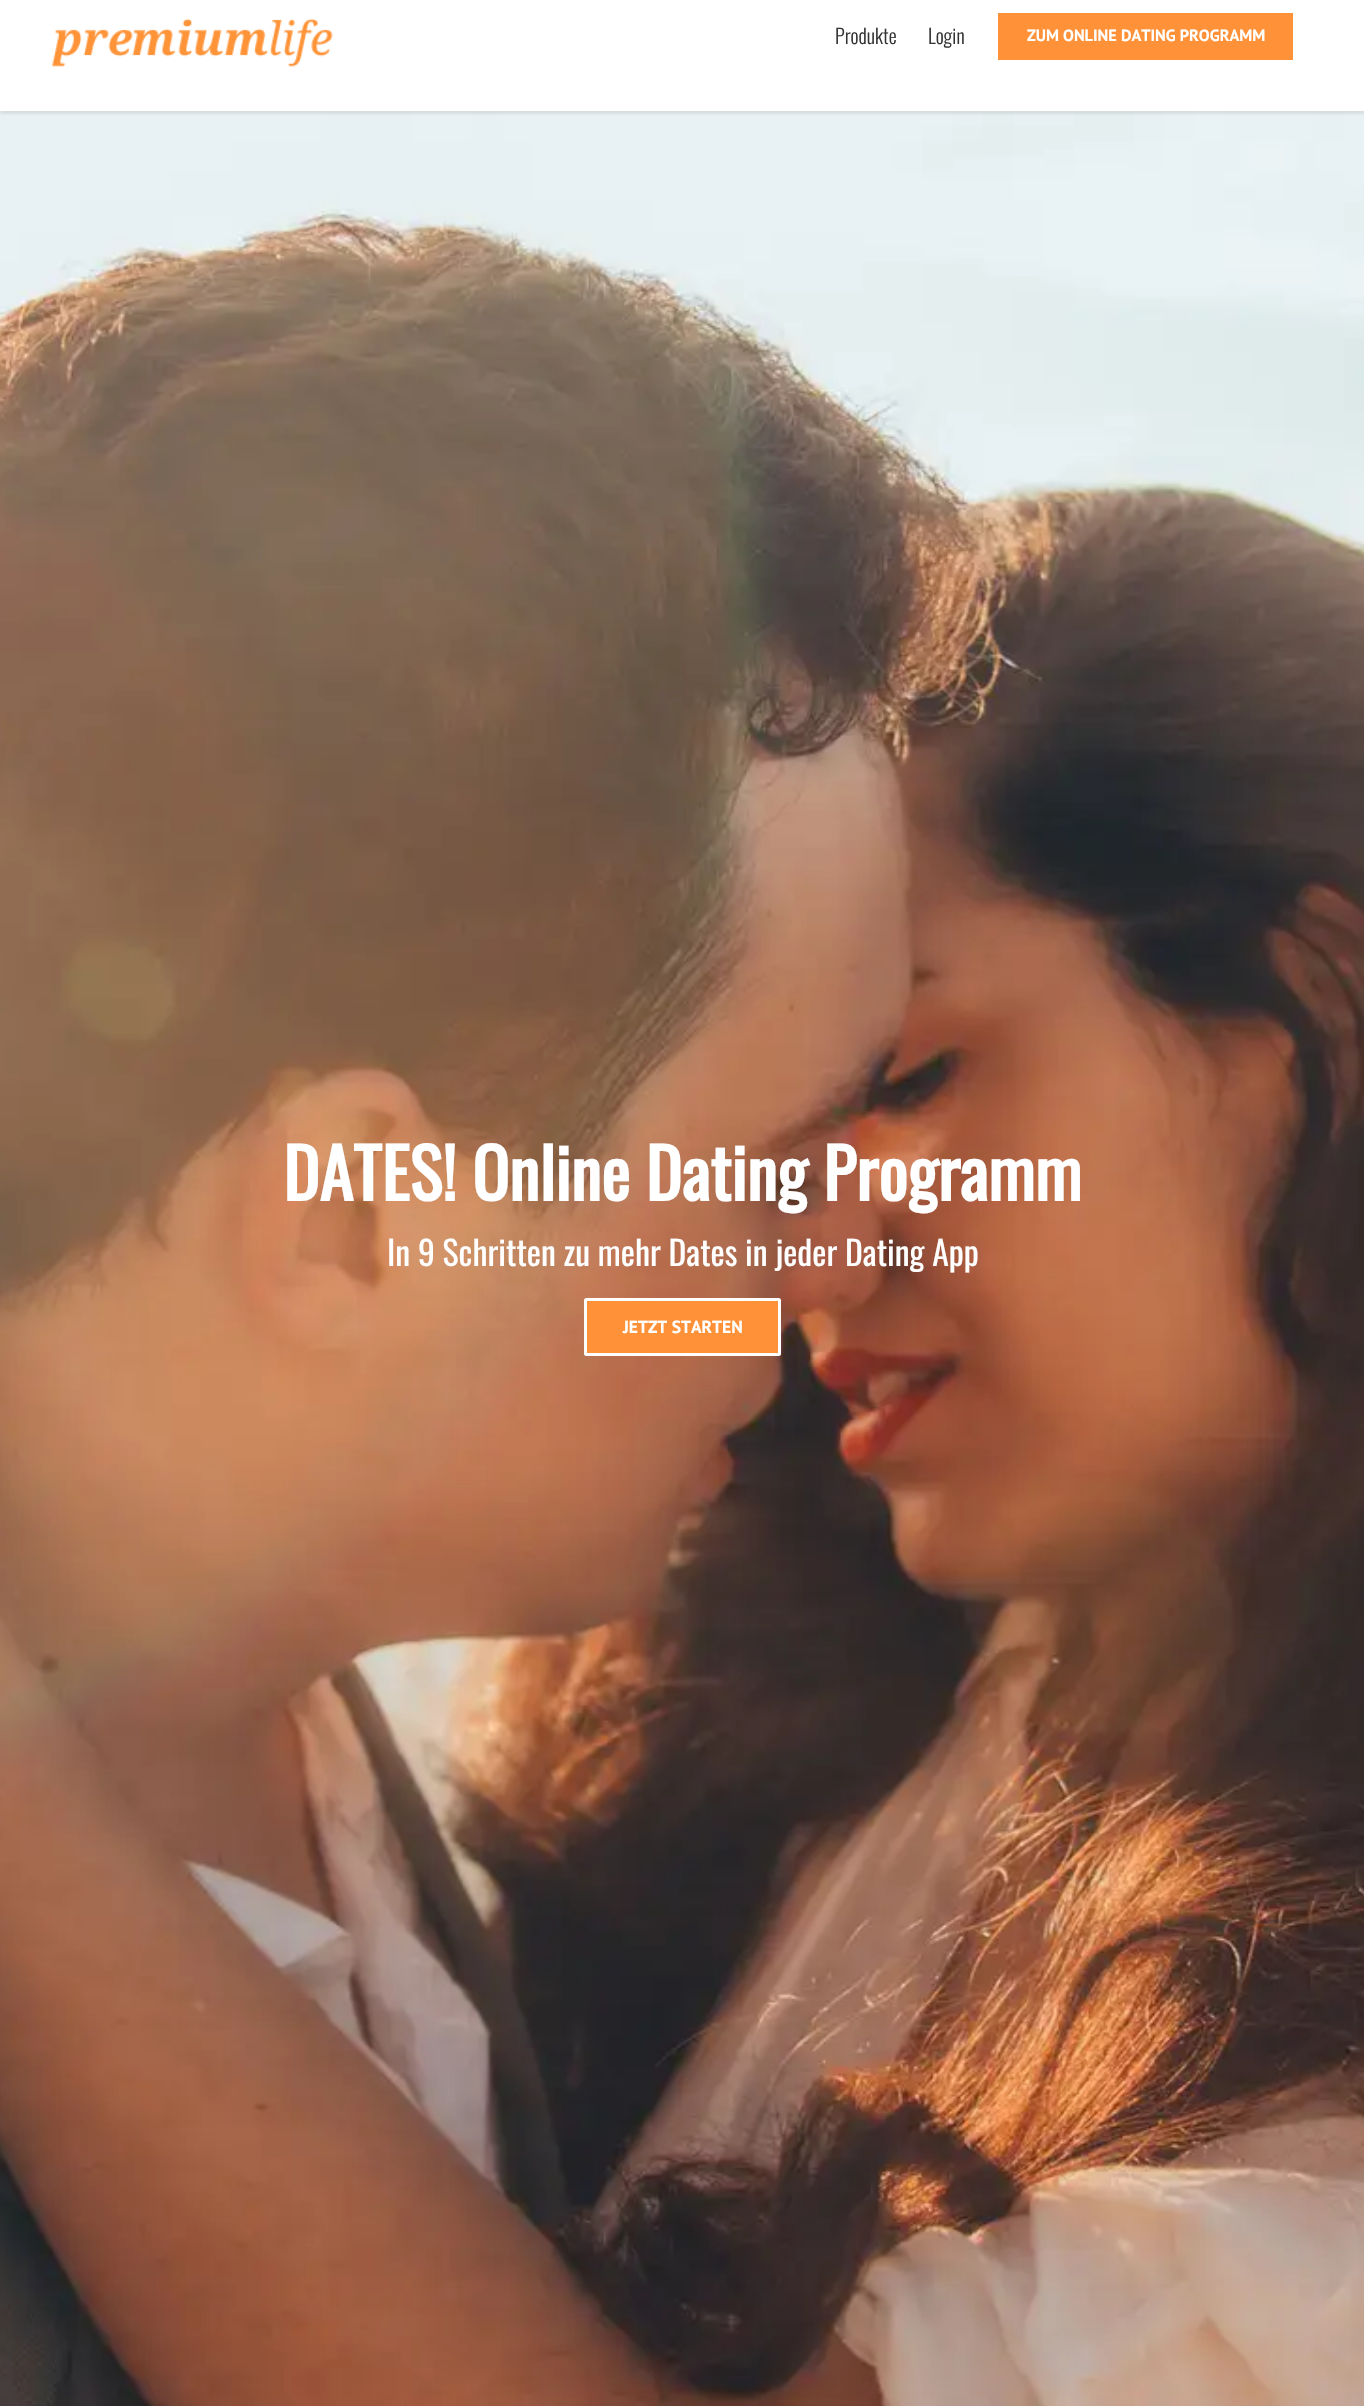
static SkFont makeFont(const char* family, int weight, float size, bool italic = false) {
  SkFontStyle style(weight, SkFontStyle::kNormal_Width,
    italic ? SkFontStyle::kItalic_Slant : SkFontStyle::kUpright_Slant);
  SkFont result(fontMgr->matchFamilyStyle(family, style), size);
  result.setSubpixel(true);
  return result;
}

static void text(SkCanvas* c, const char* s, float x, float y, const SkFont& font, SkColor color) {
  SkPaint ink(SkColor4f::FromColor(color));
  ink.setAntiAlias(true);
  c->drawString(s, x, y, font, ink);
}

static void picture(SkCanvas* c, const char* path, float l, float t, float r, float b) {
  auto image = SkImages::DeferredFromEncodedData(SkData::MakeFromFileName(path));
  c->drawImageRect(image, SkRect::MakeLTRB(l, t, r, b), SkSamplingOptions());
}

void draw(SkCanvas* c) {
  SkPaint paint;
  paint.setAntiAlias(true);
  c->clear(0xffffffff);
  picture(c, "img_02.png", 0, 111, 1364, 2406);
  c->save();
  c->clipRect(SkRect::MakeLTRB(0, 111, 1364, 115));
  paint.setColor(0x1f000000);
  paint.setMaskFilter(SkMaskFilter::MakeBlur(kNormal_SkBlurStyle, 2));
  c->drawRect(SkRect::MakeLTRB(0, 1, 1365, 113), paint);
  paint.setMaskFilter(nullptr);
  c->restore();
  picture(c, "img_01.png", 52, 18, 333, 67);
  SkFont face1 = makeFont("Oswald", 300, 20);
  text(c, "Produkte", 835, 44, face1, 0xff333333);
  text(c, "Login", 928, 44, face1, 0xff333333);
  paint.setColor(0xffff9238);
  c->drawRoundRect(SkRect::MakeLTRB(996.5f, 11.5f, 1294.5f, 61.5f), 1, 1, paint);
  paint.setStyle(SkPaint::kStroke_Style);
  paint.setStrokeWidth(3);
  paint.setColor(0xffffffff);
  c->drawRoundRect(SkRect::MakeLTRB(996.5f, 11.5f, 1294.5f, 61.5f), 1, 1, paint);
  SkFont face2 = makeFont("PT Sans", 700, 16.25f);
  text(c, "ZUM ONLINE DATING PROGRAMM", 1027, 41, face2, 0xffffffff);
  SkFont face3 = makeFont("Oswald", 700, 68.75f);
  text(c, "DATES! Online Dating Programm", 283, 1201, face3, 0xffffffff);
  SkFont face4 = makeFont("Oswald", 400, 33.75f);
  text(c, "In 9 Schritten zu mehr Dates in jeder Dating App", 387, 1266, face4, 0xffffffff);
  paint.setStyle(SkPaint::kFill_Style);
  paint.setColor(0xffff9238);
  c->drawRoundRect(SkRect::MakeLTRB(585.5f, 1299.5f, 779.5f, 1354.5f), 1, 1, paint);
  paint.setStyle(SkPaint::kStroke_Style);
  paint.setColor(0xffffffff);
  c->drawRoundRect(SkRect::MakeLTRB(585.5f, 1299.5f, 779.5f, 1354.5f), 1, 1, paint);
  SkFont face5 = makeFont("PT Sans", 700, 17.5f);
  text(c, "JETZT STARTEN", 623, 1333, face5, 0xffffffff);
}
